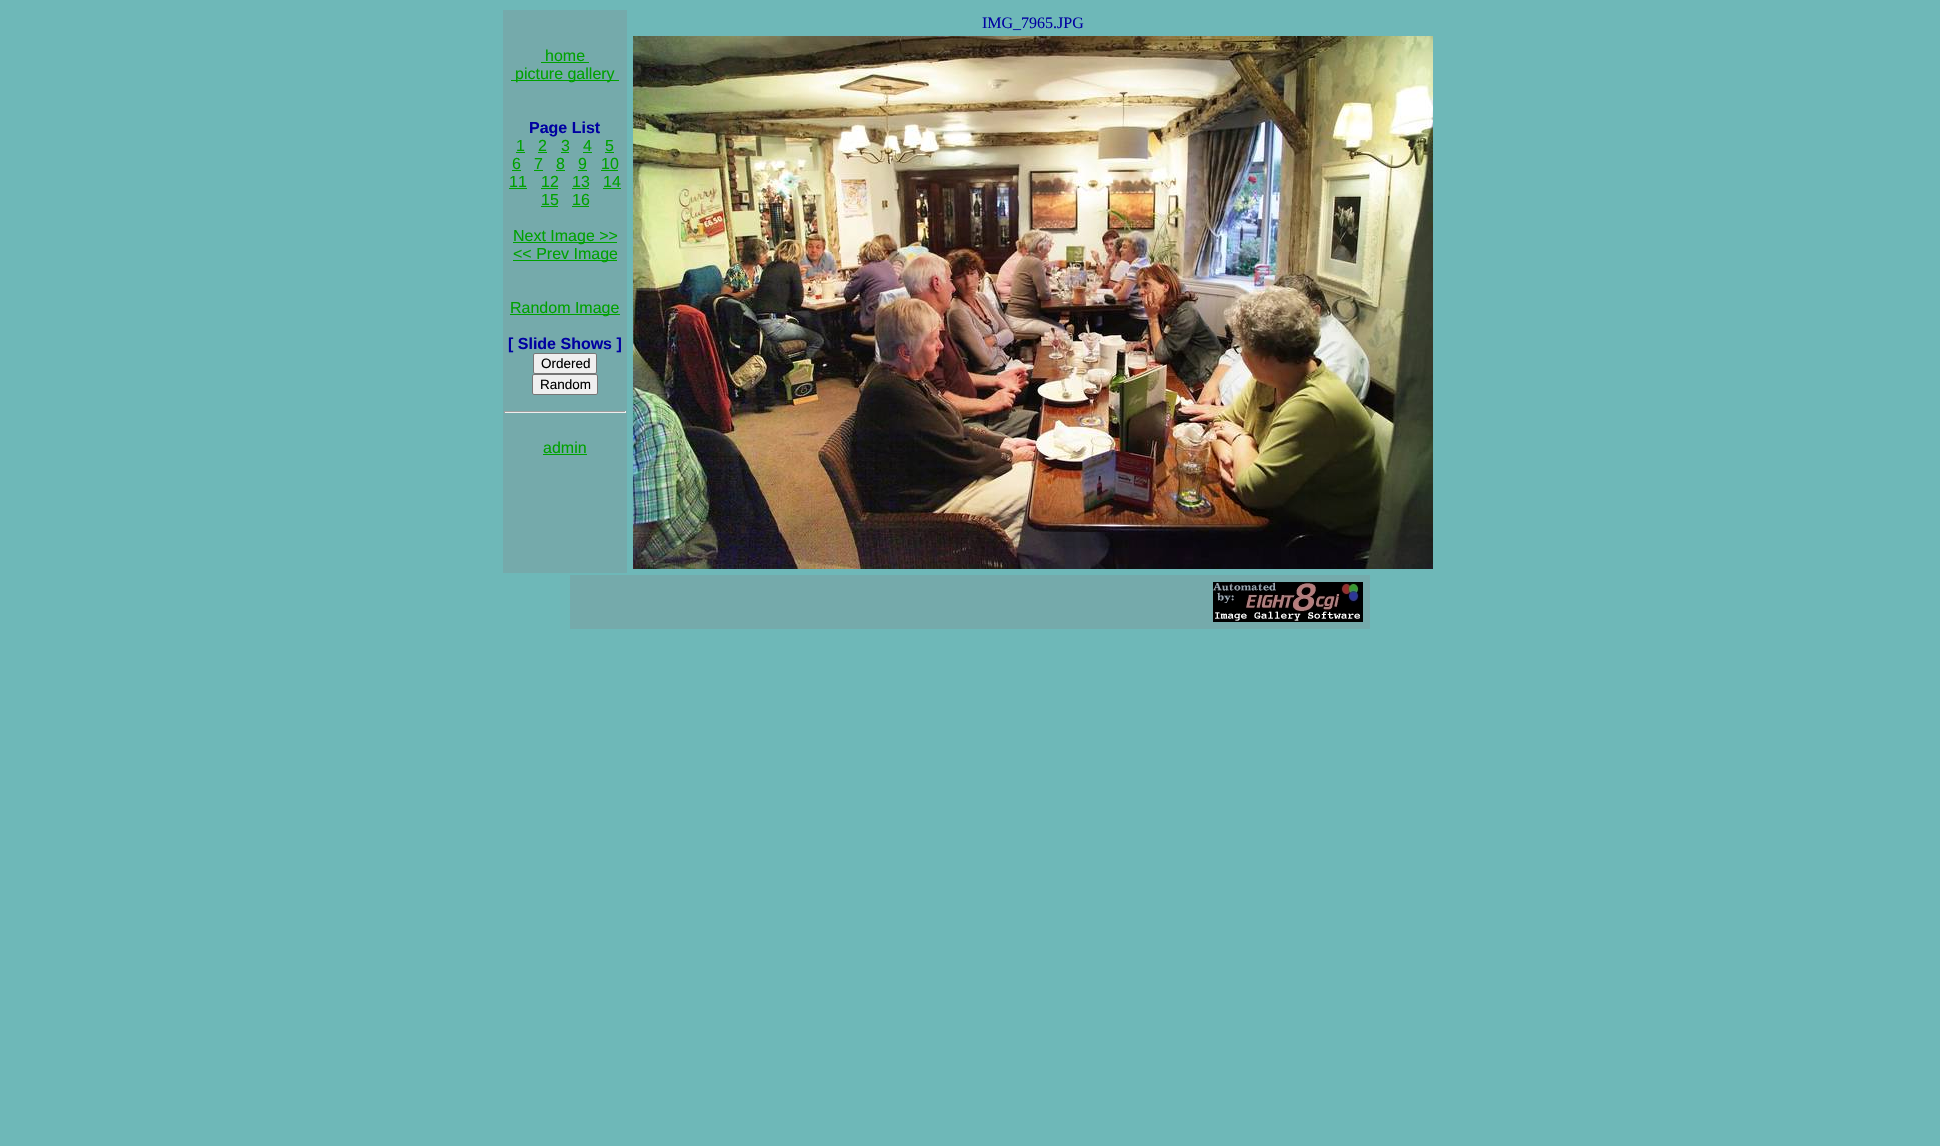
static SkFont makeFont(const char* family, int weight, float size, bool italic = false) {
  SkFontStyle style(weight, SkFontStyle::kNormal_Width,
    italic ? SkFontStyle::kItalic_Slant : SkFontStyle::kUpright_Slant);
  SkFont result(fontMgr->matchFamilyStyle(family, style), size);
  result.setSubpixel(true);
  return result;
}

static void text(SkCanvas* c, const char* s, float x, float y, const SkFont& font, SkColor color) {
  SkPaint ink(SkColor4f::FromColor(color));
  ink.setAntiAlias(true);
  c->drawString(s, x, y, font, ink);
}

static void box(SkCanvas* c, float l, float t, float r, float b, SkColor color) {
  SkPaint ink(SkColor4f::FromColor(color));
  ink.setAntiAlias(true);
  c->drawRect(SkRect::MakeLTRB(l, t, r, b), ink);
}

static void picture(SkCanvas* c, const char* path, float l, float t, float r, float b) {
  auto image = SkImages::DeferredFromEncodedData(SkData::MakeFromFileName(path));
  c->drawImageRect(image, SkRect::MakeLTRB(l, t, r, b), SkSamplingOptions());
}

void draw(SkCanvas* c) {
  SkPaint paint;
  paint.setAntiAlias(true);
  c->clear(0xff6eb8b8);
  SkFont face1 = makeFont("Liberation Serif", 400, 16);
  text(c, "IMG_7965.JPG", 982, 28, face1, 0xff0000a1);
  picture(c, "img_01.png", 633, 36, 1433, 569);
  box(c, 503, 10, 627, 573, 0xff75aaab);
  SkFont face2 = makeFont("Liberation Sans", 400, 16);
  text(c, "home", 545, 61, face2, 0xff00a100);
  box(c, 541, 62, 589, 63, 0xff00a100);
  box(c, 511, 80, 619, 81, 0xff00a100);
  text(c, "picture gallery", 515, 79, face2, 0xff00a100);
  SkFont face3 = makeFont("Liberation Sans", 700, 16);
  text(c, "Page List", 529, 133, face3, 0xff0000a1);
  text(c, "1", 516, 151, face2, 0xff00a100);
  box(c, 516, 152, 525, 153, 0xff00a100);
  text(c, "2", 538, 151, face2, 0xff00a100);
  box(c, 538, 152, 547, 153, 0xff00a100);
  text(c, "3", 561, 151, face2, 0xff00a100);
  box(c, 561, 152, 569, 153, 0xff00a100);
  text(c, "4", 583, 151, face2, 0xff00a100);
  box(c, 583, 152, 592, 153, 0xff00a100);
  text(c, "5", 605, 151, face2, 0xff00a100);
  box(c, 605, 152, 614, 153, 0xff00a100);
  text(c, "6", 512, 169, face2, 0xff00a100);
  box(c, 512, 170, 521, 171, 0xff00a100);
  text(c, "7", 534, 169, face2, 0xff00a100);
  box(c, 534, 170, 543, 171, 0xff00a100);
  text(c, "8", 556, 169, face2, 0xff00a100);
  box(c, 556, 170, 565, 171, 0xff00a100);
  text(c, "9", 578, 169, face2, 0xff00a100);
  box(c, 578, 170, 587, 171, 0xff00a100);
  text(c, "10", 601, 169, face2, 0xff00a100);
  box(c, 601, 170, 618, 171, 0xff00a100);
  text(c, "11", 509, 187, face2, 0xff00a100);
  box(c, 509, 188, 527, 189, 0xff00a100);
  text(c, "12", 541, 187, face2, 0xff00a100);
  box(c, 541, 188, 558, 189, 0xff00a100);
  text(c, "13", 572, 187, face2, 0xff00a100);
  box(c, 572, 188, 589, 189, 0xff00a100);
  text(c, "14", 603, 187, face2, 0xff00a100);
  box(c, 603, 188, 621, 189, 0xff00a100);
  text(c, "15", 541, 205, face2, 0xff00a100);
  box(c, 541, 206, 558, 207, 0xff00a100);
  text(c, "16", 572, 205, face2, 0xff00a100);
  box(c, 572, 206, 589, 207, 0xff00a100);
  box(c, 513, 242, 617, 243, 0xff00a100);
  text(c, "Next Image >>", 513, 241, face2, 0xff00a100);
  box(c, 513, 260, 617, 261, 0xff00a100);
  text(c, "<< Prev Image", 513, 259, face2, 0xff00a100);
  box(c, 510, 314, 620, 315, 0xff00a100);
  text(c, "Random Image", 510, 313, face2, 0xff00a100);
  text(c, "[ Slide Shows ]", 508, 349, face3, 0xff0000a1);
  paint.setColor(0xffefefef);
  c->drawRoundRect(SkRect::MakeLTRB(533.5f, 353.5f, 596.5f, 373.5f), 1.5f, 1.5f, paint);
  paint.setStyle(SkPaint::kStroke_Style);
  paint.setStrokeWidth(1);
  paint.setColor(0xff767676);
  c->drawRoundRect(SkRect::MakeLTRB(533.5f, 353.5f, 596.5f, 373.5f), 1.5f, 1.5f, paint);
  SkFont face4 = makeFont("Liberation Sans", 400, 13.5f);
  text(c, "Ordered", 541, 368, face4, 0xff000000);
  paint.setStyle(SkPaint::kFill_Style);
  paint.setColor(0xffefefef);
  c->drawRoundRect(SkRect::MakeLTRB(532.5f, 374.5f, 597.5f, 394.5f), 1.5f, 1.5f, paint);
  paint.setStyle(SkPaint::kStroke_Style);
  paint.setColor(0xff767676);
  c->drawRoundRect(SkRect::MakeLTRB(532.5f, 374.5f, 597.5f, 394.5f), 1.5f, 1.5f, paint);
  text(c, "Random", 540, 389, face4, 0xff000000);
  box(c, 504, 411, 626, 412, 0xff9f9f9f);
  box(c, 625, 411, 626, 413, 0xffeeeeee);
  box(c, 504, 412, 626, 413, 0xffeeeeee);
  box(c, 504, 411, 505, 413, 0xff9f9f9f);
  text(c, "admin", 543, 453, face2, 0xff00a100);
  box(c, 543, 454, 587, 455, 0xff00a100);
  box(c, 570, 575, 1370, 629, 0xff75aaab);
  picture(c, "img_02.png", 1213, 582, 1363, 622);
}
